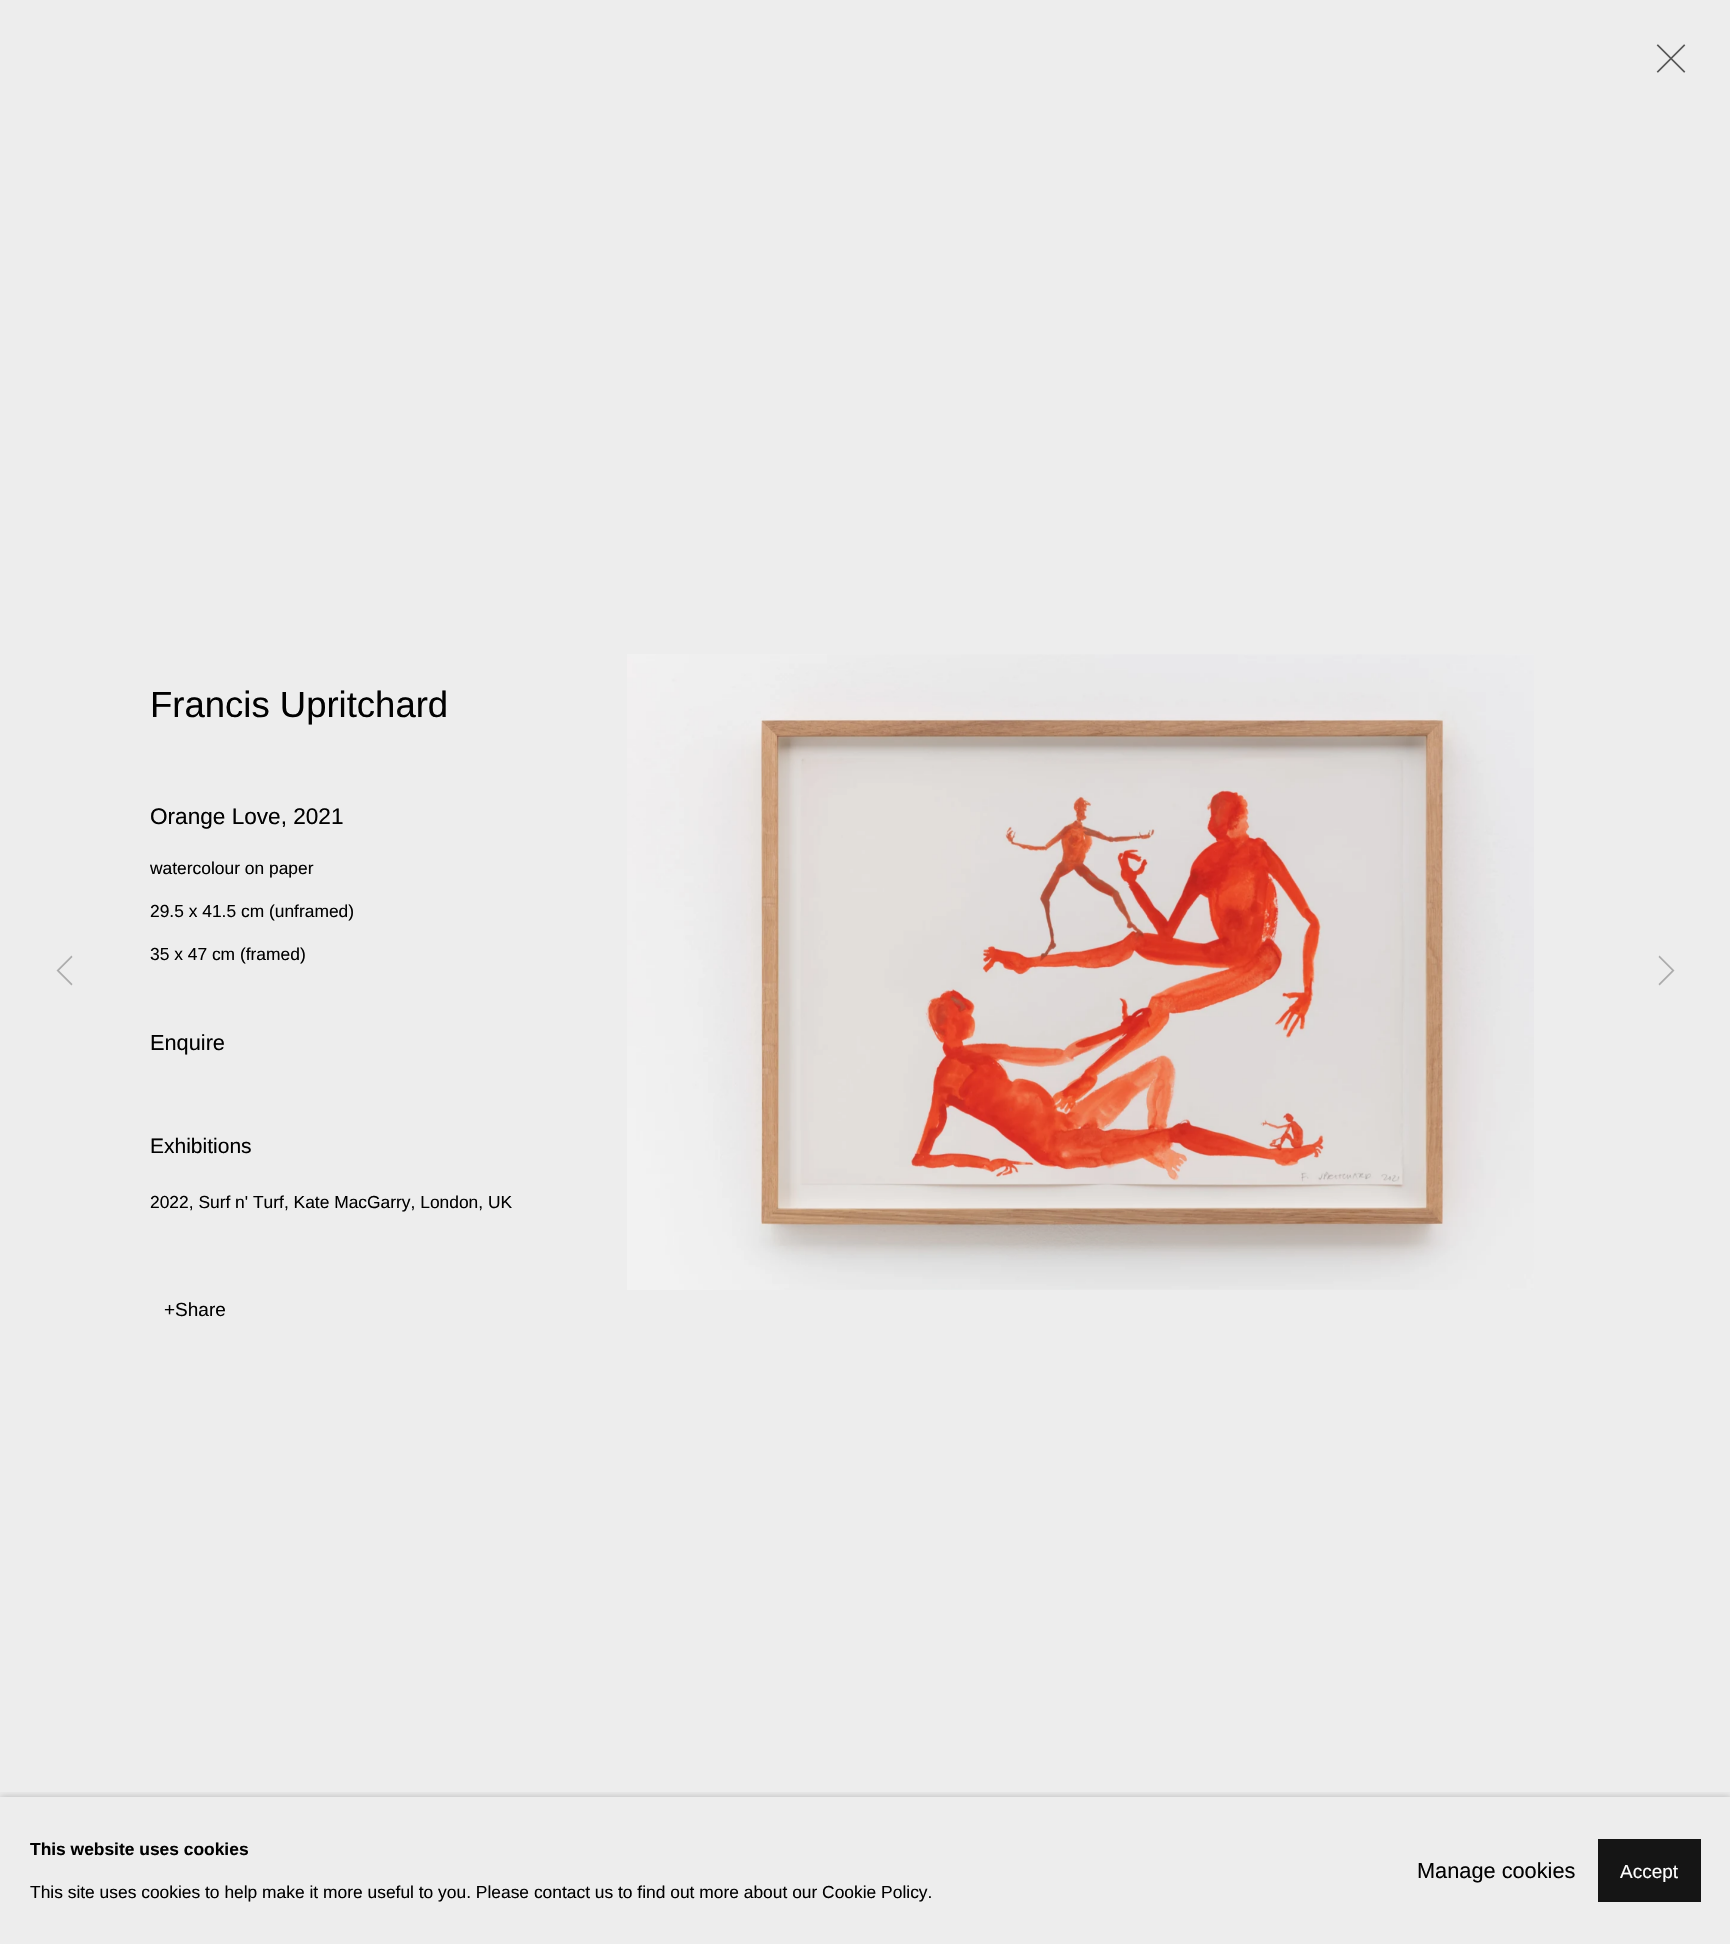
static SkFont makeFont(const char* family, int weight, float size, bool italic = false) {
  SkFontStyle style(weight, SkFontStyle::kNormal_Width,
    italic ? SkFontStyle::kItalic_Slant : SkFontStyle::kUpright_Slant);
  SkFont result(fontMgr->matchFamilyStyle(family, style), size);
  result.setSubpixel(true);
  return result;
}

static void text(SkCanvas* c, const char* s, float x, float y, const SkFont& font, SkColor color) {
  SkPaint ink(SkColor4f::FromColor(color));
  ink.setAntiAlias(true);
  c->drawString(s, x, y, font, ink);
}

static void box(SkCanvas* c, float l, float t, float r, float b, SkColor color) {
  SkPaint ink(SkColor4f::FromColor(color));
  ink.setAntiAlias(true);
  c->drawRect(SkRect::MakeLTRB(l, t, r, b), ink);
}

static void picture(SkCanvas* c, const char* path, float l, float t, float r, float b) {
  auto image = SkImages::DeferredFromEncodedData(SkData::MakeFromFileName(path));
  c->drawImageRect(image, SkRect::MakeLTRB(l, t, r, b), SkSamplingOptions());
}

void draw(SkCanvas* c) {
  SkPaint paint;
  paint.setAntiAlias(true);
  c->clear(0xffededed);
  picture(c, "img_01.png", 1656, 44, 1686, 73);
  SkFont face1 = makeFont("Liberation Sans", 400, 36.5f);
  text(c, "Francis Upritchard", 150, 717, face1, 0xff010101);
  SkFont face2 = makeFont("Liberation Sans", 400, 22.6f);
  text(c, "Orange Love, 2021", 150, 824, face2, 0xff010101);
  SkFont face3 = makeFont("Liberation Sans", 400, 17.4f);
  text(c, "watercolour on paper", 150, 874, face3, 0xff010101);
  text(c, "29.5 x 41.5 cm (unframed)", 150, 917, face3, 0xff010101);
  text(c, "35 x 47 cm (framed)", 150, 960, face3, 0xff010101);
  SkFont face4 = makeFont("Liberation Sans", 400, 21.75f);
  text(c, "Enquire", 150, 1050, face4, 0xff010101);
  SkFont face5 = makeFont("Liberation Sans", 400, 21);
  text(c, "Exhibitions", 150, 1153, face5, 0xff010101);
  text(c, "2022, Surf n' Turf, Kate MacGarry, London, UK", 150, 1208, face3, 0xff010101);
  SkFont face6 = makeFont("Liberation Sans", 400, 19);
  text(c, "+Share", 164, 1316, face6, 0xff010101);
  picture(c, "img_02.png", 627, 654, 1534, 1290);
  paint.setColor(0xffacacac);
  c->drawPath(SkPathBuilder().moveTo(57.5f, 971.5f).lineTo(71.5f, 985.5f).lineTo(72.5f, 984).lineTo(59, 970.5f).lineTo(72.5f, 957).lineTo(71.5f, 955.5f).lineTo(56.5f, 970.5f).close().detach(), paint);
  c->drawPath(SkPathBuilder().moveTo(1674.5f, 970.5f).lineTo(1659.5f, 955.5f).lineTo(1658.5f, 957).lineTo(1672, 970.5f).lineTo(1658.5f, 984).lineTo(1659.5f, 985.5f).close().detach(), paint);
  c->save();
  c->clipRect(SkRect::MakeLTRB(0, 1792, 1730, 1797));
  paint.setColor(0x3b000000);
  paint.setMaskFilter(SkMaskFilter::MakeBlur(kNormal_SkBlurStyle, 4));
  c->drawRect(SkRect::MakeLTRB(0, 1797, 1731, 1944), paint);
  paint.setMaskFilter(nullptr);
  c->restore();
  SkFont face7 = makeFont("Liberation Sans", 700, 17.4f);
  text(c, "This website uses cookies", 30, 1855, face7, 0xff010101);
  text(c, "This site uses cookies to help make it more useful to you. Please contact us to find out more about our Cookie Policy.", 30, 1898, face3, 0xff010101);
  text(c, "Manage cookies", 1417, 1878, face4, 0xff010101);
  box(c, 1598, 1839, 1701, 1902, 0xff151515);
  text(c, "Accept", 1620, 1878, face6, 0xffffffff);
}
